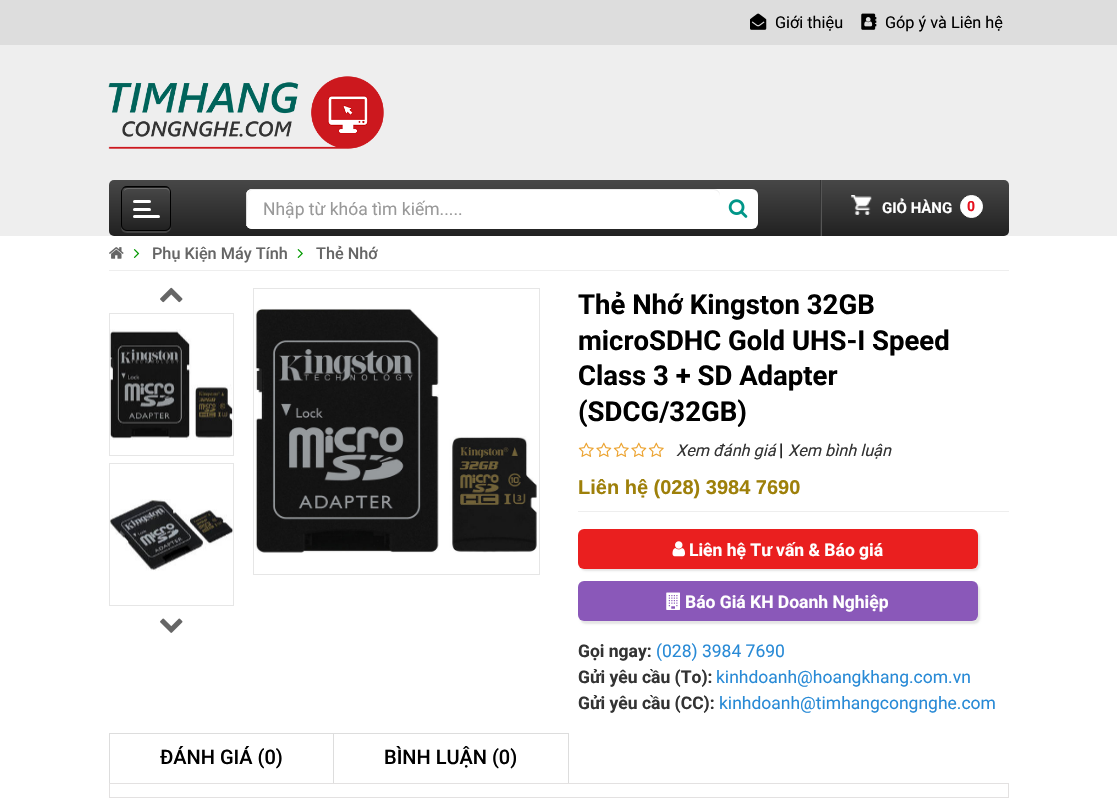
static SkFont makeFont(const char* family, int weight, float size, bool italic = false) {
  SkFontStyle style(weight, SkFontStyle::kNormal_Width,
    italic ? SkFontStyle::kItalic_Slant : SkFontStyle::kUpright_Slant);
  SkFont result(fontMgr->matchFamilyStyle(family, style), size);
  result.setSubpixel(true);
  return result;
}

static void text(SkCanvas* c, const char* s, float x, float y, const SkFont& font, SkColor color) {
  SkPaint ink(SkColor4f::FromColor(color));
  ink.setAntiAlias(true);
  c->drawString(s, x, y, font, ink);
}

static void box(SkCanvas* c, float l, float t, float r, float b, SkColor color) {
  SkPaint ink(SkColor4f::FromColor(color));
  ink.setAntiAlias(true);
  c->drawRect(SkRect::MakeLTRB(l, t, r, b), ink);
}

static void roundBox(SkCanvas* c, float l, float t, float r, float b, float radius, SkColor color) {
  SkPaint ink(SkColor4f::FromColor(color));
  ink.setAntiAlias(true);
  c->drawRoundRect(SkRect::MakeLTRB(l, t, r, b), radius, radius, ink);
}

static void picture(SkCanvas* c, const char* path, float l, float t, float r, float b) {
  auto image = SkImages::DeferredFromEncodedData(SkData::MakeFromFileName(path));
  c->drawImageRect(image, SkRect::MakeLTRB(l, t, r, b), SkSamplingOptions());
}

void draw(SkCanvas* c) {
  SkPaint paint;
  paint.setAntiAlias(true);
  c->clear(0xffffffff);
  box(c, 0, 0, 1117, 45, 0xffdddddd);
  picture(c, "img_01.png", 750, 13, 767, 30);
  SkFont face1 = makeFont("Roboto", 400, 16.25f);
  text(c, "Giới thiệu", 775, 28, face1, 0xff000000);
  picture(c, "img_02.png", 861, 13, 877, 30);
  text(c, "Góp ý và Liên hệ", 885, 28, face1, 0xff000000);
  box(c, 0, 45, 1117, 236, 0xffeeeeee);
  picture(c, "img_03.png", 108, 76, 384, 149);
  {
    const SkColor colors[] = {0xff474747, 0xff212121};
    const float stops[] = {0, 1};
    const SkPoint ends[] = {{559, 180}, {559, 236}};
    paint.setShader(SkGradientShader::MakeLinear(ends, colors, stops, 2, SkTileMode::kClamp));
    paint.setAlpha(255);
  }
  c->drawRoundRect(SkRect::MakeLTRB(109, 180, 1009, 236), 5, 5, paint);
  paint.setShader(nullptr);
  paint.setColor(0x26ffffff);
  c->drawPath(SkPathBuilder().moveTo(121, 192).lineTo(121, 216).cubicTo(121, 235, 120, 233, 140, 233).lineTo(166, 233).cubicTo(169, 232, 171, 230, 171, 227).cubicTo(169, 232, 163, 231, 159, 231).lineTo(134, 231).cubicTo(123, 231, 121, 231, 121, 220).close().detach(), paint);
  c->save();
  c->clipPath(SkPathBuilder().moveTo(127, 186).lineTo(165, 186).cubicTo(168.5f, 186, 171, 188.5f, 171, 192).lineTo(171, 225).cubicTo(171, 228.5f, 168.5f, 231, 165, 231).lineTo(127, 231).cubicTo(123.5f, 231, 121, 228.5f, 121, 225).lineTo(121, 192).cubicTo(121, 188.5f, 123.5f, 186, 127, 186).close().detach(), true);
  {
    const SkColor colors[] = {0xff474747, 0xff212121};
    const float stops[] = {0, 1};
    const SkPoint ends[] = {{146, 145}, {146, 188}};
    paint.setShader(SkGradientShader::MakeLinear(ends, colors, stops, 2, SkTileMode::kClamp));
    paint.setAlpha(255);
  }
  c->drawRect(SkRect::MakeLTRB(121, 186, 171, 188), paint);
  {
    const SkColor colors[] = {0xff474747, 0xff212121};
    const float stops[] = {0, 1};
    const SkPoint ends[] = {{146, 188}, {146, 230}};
    paint.setShader(SkGradientShader::MakeLinear(ends, colors, stops, 2, SkTileMode::kClamp));
    paint.setAlpha(255);
  }
  c->drawRect(SkRect::MakeLTRB(121, 188, 171, 230), paint);
  c->restore();
  paint.setShader(nullptr);
  paint.setColor(0xff6c6c6c);
  c->drawPath(SkPathBuilder().moveTo(128, 189).lineTo(165, 189).cubicTo(168, 189, 170, 191, 170, 194).lineTo(170, 193).cubicTo(170, 190, 168, 188, 165, 188).lineTo(128, 188).cubicTo(126, 188, 124, 189, 124, 191).cubicTo(125, 190, 126, 189, 128, 189).close().detach(), paint);
  paint.setStyle(SkPaint::kStroke_Style);
  paint.setStrokeWidth(1);
  paint.setColor(0xff000000);
  c->drawRoundRect(SkRect::MakeLTRB(121.5f, 186.5f, 170.5f, 230.5f), 5.5f, 5.5f, paint);
  roundBox(c, 133, 200, 151, 203, 1.5f, 0xffffffff);
  roundBox(c, 133, 208, 151, 211, 1.5f, 0xffffffff);
  roundBox(c, 133, 215, 160, 218, 1.5f, 0xffffffff);
  roundBox(c, 246, 189, 758, 229, 6, 0xffffffff);
  roundBox(c, 246, 189, 720, 229, 6, 0xffffffff);
  paint.setStyle(SkPaint::kFill_Style);
  paint.setColor(0xffececec);
  c->drawPath(SkPathBuilder().moveTo(252, 190).lineTo(714, 190).cubicTo(717, 190, 720, 193, 720, 196).lineTo(720, 195).cubicTo(720, 192, 717, 189, 714, 189).lineTo(252, 189).cubicTo(250, 189, 248, 192, 248, 195).lineTo(248, 222).lineTo(248, 226).lineTo(248, 210).cubicTo(248, 208, 246, 190, 252, 190).close().detach(), paint);
  box(c, 246, 193, 247, 226, 0xffdddddd);
  SkFont face2 = makeFont("Roboto", 400, 17.5f);
  text(c, "Nhập từ khóa tìm kiếm.....", 263, 215, face2, 0xff999999);
  picture(c, "img_04.png", 728, 199, 748, 218);
  box(c, 820, 180, 821, 236, 0xff333333);
  box(c, 821, 180, 822, 236, 0xff555555);
  picture(c, "img_05.png", 851, 195, 872, 215);
  SkFont face3 = makeFont("Roboto", 700, 15);
  text(c, "GIỎ HÀNG", 882, 213, face3, 0xffffffff);
  paint.setColor(0xffffffff);
  c->drawCircle(971.5f, 206.5f, 11, paint);
  paint.setStyle(SkPaint::kStroke_Style);
  c->drawCircle(971.5f, 206.5f, 11, paint);
  SkFont face4 = makeFont("Roboto", 700, 14);
  text(c, "0", 967, 211, face4, 0xffe5101d);
  box(c, 109, 270, 1009, 271, 0xffeeeeee);
  picture(c, "img_06.png", 109, 247, 124, 259);
  picture(c, "img_07.png", 133, 249, 140, 258);
  SkFont face5 = makeFont("Roboto", 500, 16.25f);
  text(c, "Phụ Kiện Máy Tính", 152, 259, face5, 0xff666666);
  picture(c, "img_08.png", 297, 249, 303, 258);
  text(c, "Thẻ Nhớ", 316, 259, face5, 0xff666666);
  picture(c, "img_09.png", 160, 287, 183, 303);
  paint.setColor(0xffe6e6e6);
  c->drawRect(SkRect::MakeLTRB(109.5f, 313.5f, 233.5f, 455.5f), paint);
  picture(c, "img_10.png", 110, 329, 233, 440);
  c->drawRect(SkRect::MakeLTRB(109.5f, 463.5f, 233.5f, 605.5f), paint);
  picture(c, "img_11.png", 110, 499, 233, 571);
  picture(c, "img_12.png", 160, 618, 183, 633);
  c->drawRect(SkRect::MakeLTRB(253.5f, 288.5f, 539.5f, 574.5f), paint);
  picture(c, "img_13.png", 255, 308, 537, 553);
  SkFont face6 = makeFont("Roboto", 700, 27.5f);
  text(c, "Thẻ Nhớ Kingston 32GB", 578, 314, face6, 0xff000000);
  text(c, "microSDHC Gold UHS-I Speed", 578, 350, face6, 0xff000000);
  text(c, "Class 3 + SD Adapter", 578, 385, face6, 0xff000000);
  text(c, "(SDCG/32GB)", 578, 421, face6, 0xff000000);
  picture(c, "img_14.png", 578, 442, 594, 457);
  picture(c, "img_15.png", 596, 442, 612, 457);
  picture(c, "img_14.png", 613, 442, 629, 457);
  picture(c, "img_15.png", 631, 442, 647, 457);
  picture(c, "img_14.png", 648, 442, 664, 457);
  SkFont face7 = makeFont("Roboto", 400, 16.25f, true);
  text(c, "Xem đánh giá", 676, 456, face7, 0xff333333);
  text(c, "|", 779, 456, face2, 0xff000000);
  text(c, "Xem bình luận", 788, 456, face7, 0xff333333);
  SkFont face8 = makeFont("Liberation Sans", 700, 20);
  text(c, "Liên hệ (028) 3984 7690", 578, 494, face8, 0xff9e800a);
  box(c, 578, 511, 1009, 512, 0xffeeeeee);
  c->save();
  c->clipPath(SkPathBuilder(SkPathFillType::kEvenOdd).moveTo(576, 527).lineTo(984, 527).lineTo(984, 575).lineTo(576, 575).close().moveTo(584, 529).lineTo(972, 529).cubicTo(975.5f, 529, 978, 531.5f, 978, 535).lineTo(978, 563).cubicTo(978, 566.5f, 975.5f, 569, 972, 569).lineTo(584, 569).cubicTo(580.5f, 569, 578, 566.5f, 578, 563).lineTo(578, 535).cubicTo(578, 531.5f, 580.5f, 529, 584, 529).close().detach(), true);
  paint.setStyle(SkPaint::kFill_Style);
  paint.setColor(0x1a000000);
  paint.setMaskFilter(SkMaskFilter::MakeBlur(kNormal_SkBlurStyle, 1));
  c->drawRoundRect(SkRect::MakeLTRB(580, 531, 980, 571), 6, 6, paint);
  paint.setMaskFilter(nullptr);
  c->restore();
  roundBox(c, 578, 529, 978, 569, 6, 0xe0e70000);
  picture(c, "img_16.png", 672, 541, 685, 557);
  SkFont face9 = makeFont("Roboto", 700, 17.5f);
  text(c, "Liên hệ Tư vấn & Báo giá", 689, 556, face9, 0xffffffff);
  c->save();
  c->clipPath(SkPathBuilder(SkPathFillType::kEvenOdd).moveTo(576, 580).lineTo(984, 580).lineTo(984, 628).lineTo(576, 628).close().moveTo(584, 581).lineTo(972, 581).cubicTo(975.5f, 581, 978, 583.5f, 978, 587).lineTo(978, 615).cubicTo(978, 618.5f, 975.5f, 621, 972, 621).lineTo(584, 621).cubicTo(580.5f, 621, 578, 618.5f, 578, 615).lineTo(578, 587).cubicTo(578, 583.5f, 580.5f, 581, 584, 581).close().detach(), true);
  paint.setMaskFilter(SkMaskFilter::MakeBlur(kNormal_SkBlurStyle, 1));
  c->drawRoundRect(SkRect::MakeLTRB(580, 584, 980, 624), 6, 6, paint);
  paint.setMaskFilter(nullptr);
  c->restore();
  roundBox(c, 578, 581, 978, 621, 6, 0xe07a41af);
  picture(c, "img_17.png", 666, 592, 680, 610);
  text(c, "Báo Giá KH Doanh Nghiệp", 685, 608, face9, 0xffffffff);
  text(c, "Gọi ngay:", 578, 657, face9, 0xff333333);
  text(c, "(028) 3984 7690", 656, 657, face2, 0xff288ad6);
  text(c, "Gửi yêu cầu (To):", 578, 683, face9, 0xff333333);
  text(c, "kinhdoanh@hoangkhang.com.vn", 716, 683, face2, 0xff288ad6);
  text(c, "Gửi yêu cầu (CC):", 578, 709, face9, 0xff333333);
  text(c, "kinhdoanh@timhangcongnghe.com", 719, 709, face2, 0xff288ad6);
  box(c, 109, 733, 569, 734, 0xffdddddd);
  box(c, 109, 733, 110, 783, 0xffdddddd);
  SkFont face10 = makeFont("Roboto", 500, 20);
  text(c, "ĐÁNH GIÁ (0)", 160, 764, face10, 0xff000000);
  box(c, 568, 733, 569, 783, 0xffdddddd);
  box(c, 333, 733, 334, 783, 0xffdddddd);
  text(c, "BÌNH LUẬN (0)", 384, 764, face10, 0xff000000);
  paint.setStyle(SkPaint::kStroke_Style);
  paint.setColor(0xffe3e1e1);
  c->drawRect(SkRect::MakeLTRB(109.5f, 783.5f, 1008.5f, 797.5f), paint);
}
